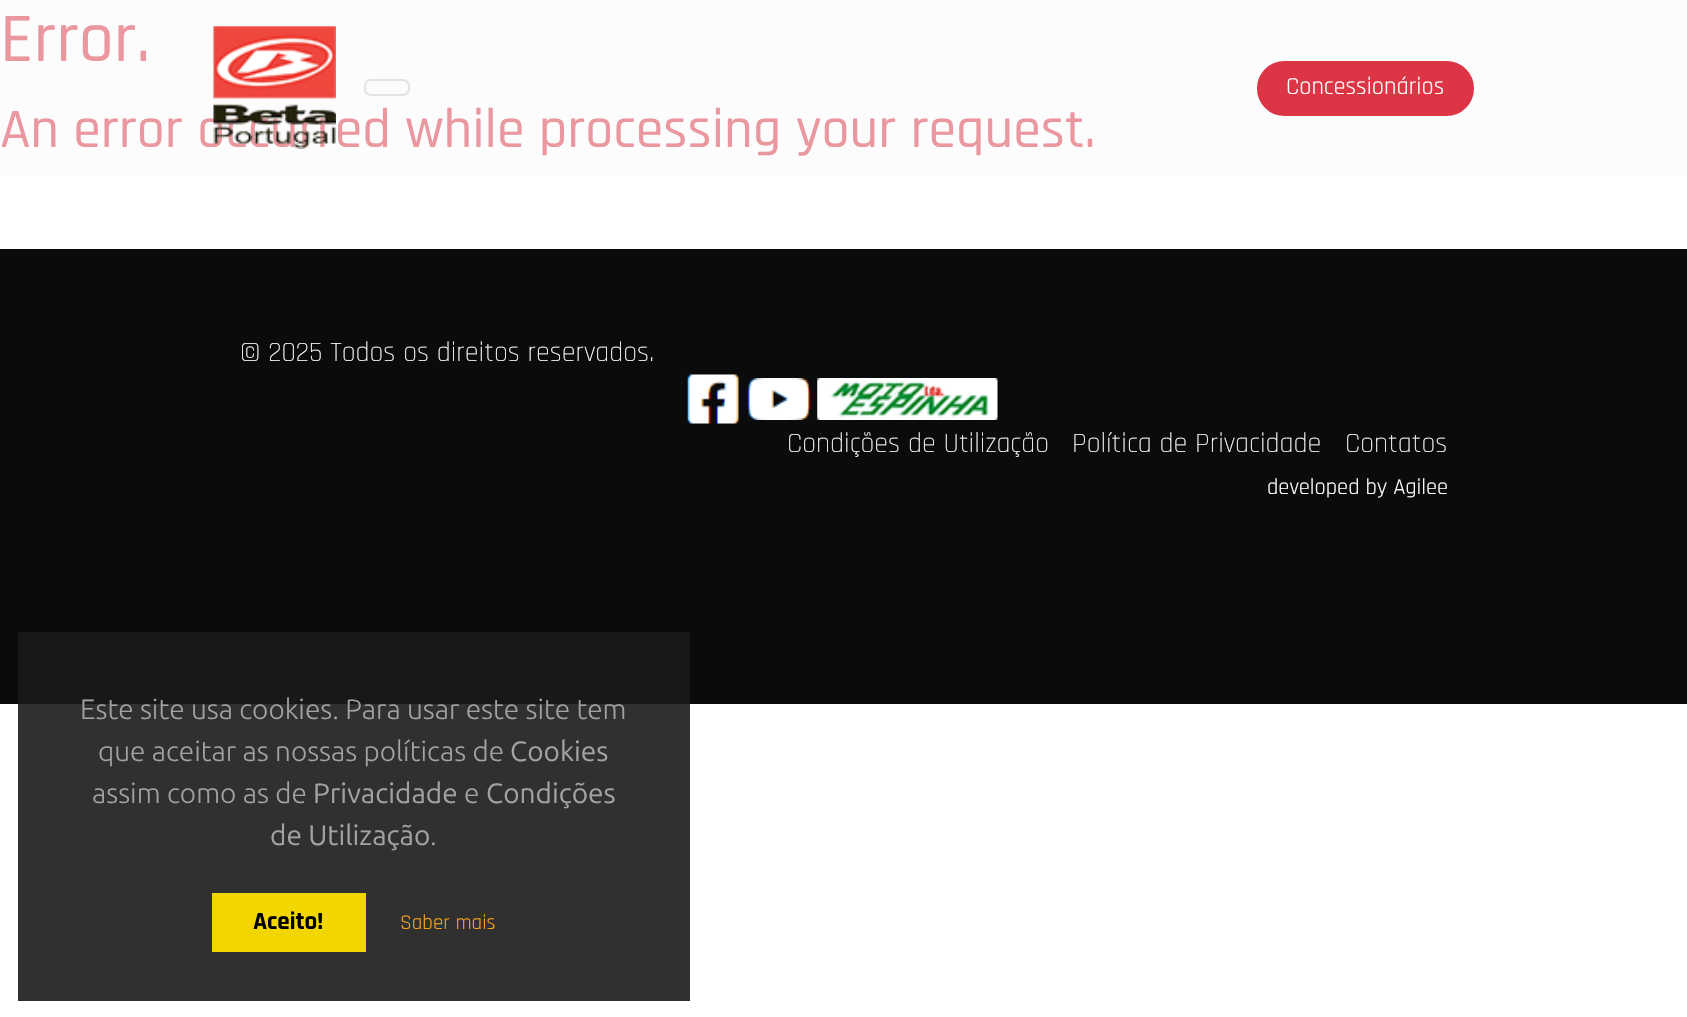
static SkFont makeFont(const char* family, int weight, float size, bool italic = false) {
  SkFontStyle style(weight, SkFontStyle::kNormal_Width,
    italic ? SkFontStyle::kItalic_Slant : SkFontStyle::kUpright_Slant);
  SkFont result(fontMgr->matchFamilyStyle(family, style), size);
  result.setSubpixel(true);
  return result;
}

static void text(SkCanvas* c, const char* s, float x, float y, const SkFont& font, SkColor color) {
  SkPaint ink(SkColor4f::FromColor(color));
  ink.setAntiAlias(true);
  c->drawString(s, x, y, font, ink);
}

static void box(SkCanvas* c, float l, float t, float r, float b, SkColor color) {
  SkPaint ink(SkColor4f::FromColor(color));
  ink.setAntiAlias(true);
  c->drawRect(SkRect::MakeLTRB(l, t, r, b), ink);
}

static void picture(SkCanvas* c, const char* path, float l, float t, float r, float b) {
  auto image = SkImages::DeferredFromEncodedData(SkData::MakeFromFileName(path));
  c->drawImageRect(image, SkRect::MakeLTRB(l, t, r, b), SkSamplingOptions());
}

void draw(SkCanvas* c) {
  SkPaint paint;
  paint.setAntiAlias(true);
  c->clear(0xffffffff);
  box(c, 18, 704, 690, 1001, 0xff303030);
  box(c, 0, 0, 1687, 175, 0xfffcfcfd);
  SkFont face1 = makeFont("Rajdhani", 500, 70);
  text(c, "Error.", 0, 61, face1, 0xffea97a0);
  SkFont face2 = makeFont("Rajdhani", 500, 56);
  text(c, "An error occurred while processing your request.", 0, 147, face2, 0xffea97a0);
  picture(c, "img_01.png", 213, 26, 336, 149);
  paint.setStyle(SkPaint::kStroke_Style);
  paint.setStrokeWidth(2);
  paint.setColor(0xffe2e3e3);
  c->drawRoundRect(SkRect::MakeLTRB(365, 80, 409, 95), 6, 6, paint);
  paint.setStyle(SkPaint::kFill_Style);
  paint.setColor(0xffdc3545);
  c->drawRoundRect(SkRect::MakeLTRB(1258, 62, 1473, 115), 26.5f, 26.5f, paint);
  paint.setStyle(SkPaint::kStroke_Style);
  c->drawRoundRect(SkRect::MakeLTRB(1258, 62, 1473, 115), 26.5f, 26.5f, paint);
  SkFont face3 = makeFont("Rajdhani", 400, 24.5f);
  text(c, "Concessionários", 1286, 94, face3, 0xffffffff);
  box(c, 0, 249, 1687, 704, 0xff0b0b0b);
  box(c, 18, 632, 690, 704, 0xff181818);
  SkFont face4 = makeFont("Rajdhani", 300, 28);
  text(c, "© 2025 Todos os direitos reservados.", 240, 361, face4, 0xffffffff);
  picture(c, "img_02.png", 687, 374, 739, 424);
  picture(c, "img_03.png", 747, 378, 811, 420);
  picture(c, "img_04.png", 817, 378, 998, 420);
  text(c, "Condições de Utilização", 787, 452, face4, 0xffffffff);
  text(c, "Política de Privacidade", 1072, 452, face4, 0xffffffff);
  text(c, "Contatos", 1345, 452, face4, 0xffffffff);
  SkFont face5 = makeFont("Rajdhani", 400, 22.5f);
  text(c, "developed by Agilee", 1267, 494, face5, 0xffffffff);
  SkFont face6 = makeFont("Ubuntu", 300, 28);
  text(c, "Este site usa cookies. Para usar este site tem", 80, 719, face6, 0xffa2a2a2);
  text(c, "que aceitar as nossas políticas de", 98, 761, face6, 0xffa2a2a2);
  SkFont face7 = makeFont("Ubuntu", 400, 28);
  text(c, "Cookies", 510, 761, face7, 0xffa2a2a2);
  text(c, "assim como as de", 92, 803, face6, 0xffa2a2a2);
  text(c, "Privacidade", 313, 803, face7, 0xffa2a2a2);
  text(c, "e", 464, 803, face6, 0xffa2a2a2);
  text(c, "Condições", 486, 803, face7, 0xffa2a2a2);
  text(c, "de Utilização", 270, 845, face7, 0xffa2a2a2);
  text(c, ".", 430, 845, face6, 0xffa2a2a2);
  box(c, 212, 893, 366, 952, 0xfff1d600);
  SkFont face8 = makeFont("Rajdhani", 700, 25);
  text(c, "Aceito!", 253, 929, face8, 0xff000000);
  SkFont face9 = makeFont("Rajdhani", 400, 21);
  text(c, "Saber mais", 400, 929, face9, 0xfff6a21d);
}
